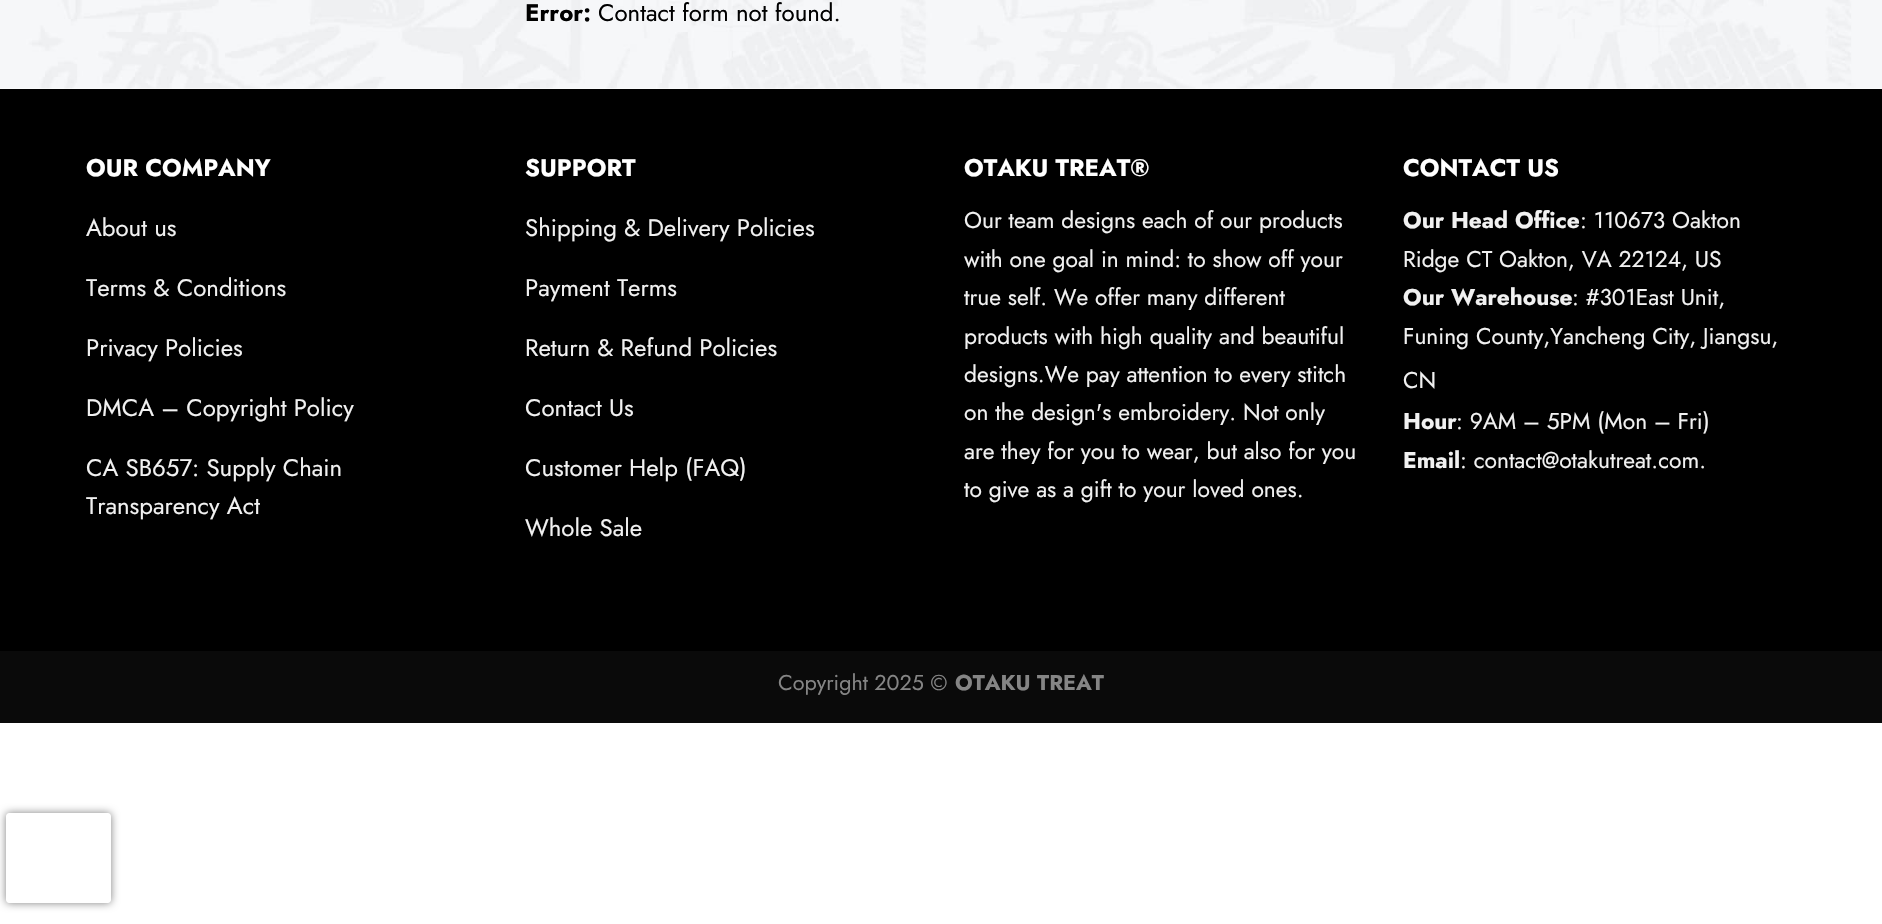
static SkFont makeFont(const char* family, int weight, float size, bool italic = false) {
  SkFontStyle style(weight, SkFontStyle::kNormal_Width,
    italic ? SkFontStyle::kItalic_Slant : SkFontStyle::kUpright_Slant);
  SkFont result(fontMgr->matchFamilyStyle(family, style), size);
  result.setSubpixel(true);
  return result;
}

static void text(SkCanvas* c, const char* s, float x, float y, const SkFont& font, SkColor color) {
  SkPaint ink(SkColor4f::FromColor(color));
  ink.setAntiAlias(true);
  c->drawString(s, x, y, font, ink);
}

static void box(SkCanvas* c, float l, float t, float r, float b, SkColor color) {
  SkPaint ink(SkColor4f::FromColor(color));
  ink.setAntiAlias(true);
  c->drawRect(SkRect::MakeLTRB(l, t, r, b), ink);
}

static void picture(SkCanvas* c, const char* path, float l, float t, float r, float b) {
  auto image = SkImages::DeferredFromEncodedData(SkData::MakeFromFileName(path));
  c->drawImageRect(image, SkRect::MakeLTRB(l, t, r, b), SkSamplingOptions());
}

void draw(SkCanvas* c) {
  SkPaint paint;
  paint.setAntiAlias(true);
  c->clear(0xffffffff);
  picture(c, "img_01.png", 0, 0, 1882, 89);
  SkFont face1 = makeFont("Jost", 700, 24);
  text(c, "Error:", 525, 21, face1, 0xff000000);
  SkFont face2 = makeFont("Jost", 400, 24);
  text(c, "Contact form not found.", 598, 21, face2, 0xff000000);
  box(c, 0, 89, 1882, 651, 0xff000000);
  text(c, "OUR COMPANY", 86, 176, face1, 0xffffffff);
  text(c, "About us", 86, 236, face2, 0xfff1f1f1);
  text(c, "Terms & Conditions", 86, 296, face2, 0xfff1f1f1);
  text(c, "Privacy Policies", 86, 356, face2, 0xfff1f1f1);
  text(c, "DMCA – Copyright Policy", 86, 416, face2, 0xfff1f1f1);
  text(c, "CA SB657: Supply Chain", 86, 476, face2, 0xfff1f1f1);
  text(c, "Transparency Act", 86, 514, face2, 0xfff1f1f1);
  text(c, "SUPPORT", 525, 176, face1, 0xffffffff);
  text(c, "Shipping & Delivery Policies", 525, 236, face2, 0xfff1f1f1);
  text(c, "Payment Terms", 525, 296, face2, 0xfff1f1f1);
  text(c, "Return & Refund Policies", 525, 356, face2, 0xfff1f1f1);
  text(c, "Contact Us", 525, 416, face2, 0xfff1f1f1);
  text(c, "Customer Help (FAQ)", 525, 476, face2, 0xfff1f1f1);
  text(c, "Whole Sale", 525, 536, face2, 0xfff1f1f1);
  text(c, "OTAKU TREAT®", 964, 176, face1, 0xffffffff);
  SkFont face3 = makeFont("Jost", 400, 22.75f);
  text(c, "Our team designs each of our products", 964, 228, face3, 0xfff1f1f1);
  text(c, "with one goal in mind: to show off your", 964, 267, face3, 0xfff1f1f1);
  text(c, "true self. We offer many different", 964, 305, face3, 0xfff1f1f1);
  text(c, "products with high quality and beautiful", 964, 344, face3, 0xfff1f1f1);
  text(c, "designs.We pay attention to every stitch", 964, 382, face3, 0xfff1f1f1);
  text(c, "on the design's embroidery. Not only", 964, 420, face3, 0xfff1f1f1);
  text(c, "are they for you to wear, but also for you", 964, 459, face3, 0xfff1f1f1);
  text(c, "to give as a gift to your loved ones.", 964, 497, face3, 0xfff1f1f1);
  text(c, "CONTACT US", 1403, 176, face1, 0xffffffff);
  SkFont face4 = makeFont("Jost", 700, 22.75f);
  text(c, "Our Head Office", 1403, 228, face4, 0xfff1f1f1);
  text(c, ": 110673 Oakton", 1580, 228, face3, 0xfff1f1f1);
  text(c, "Ridge CT Oakton, VA 22124, US", 1403, 267, face3, 0xfff1f1f1);
  text(c, "Our Warehouse", 1403, 305, face4, 0xfff1f1f1);
  text(c, ": #301East Unit,", 1572, 305, face3, 0xfff1f1f1);
  text(c, "Funing County,Yancheng City, Jiangsu,", 1403, 344, face3, 0xfff1f1f1);
  text(c, "CN", 1403, 388, face3, 0xfff1f1f1);
  text(c, "Hour", 1403, 429, face4, 0xfff1f1f1);
  text(c, ": 9AM – 5PM (Mon – Fri)", 1456, 429, face3, 0xfff1f1f1);
  text(c, "Email", 1403, 468, face4, 0xfff1f1f1);
  text(c, ": contact@otakutreat.com.", 1460, 468, face3, 0xfff1f1f1);
  box(c, 0, 651, 1882, 723, 0xff0a0a0a);
  SkFont face5 = makeFont("Jost", 400, 21.5f);
  text(c, "Copyright 2025 ©", 778, 690, face5, 0xff858585);
  SkFont face6 = makeFont("Jost", 700, 21.5f);
  text(c, "OTAKU TREAT", 955, 690, face6, 0xff858585);
  c->save();
  c->clipPath(SkPathBuilder(SkPathFillType::kEvenOdd).moveTo(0, 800).lineTo(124, 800).lineTo(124, 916).lineTo(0, 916).close().moveTo(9, 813).lineTo(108, 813).cubicTo(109.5f, 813, 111, 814.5f, 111, 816).lineTo(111, 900).cubicTo(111, 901.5f, 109.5f, 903, 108, 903).lineTo(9, 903).cubicTo(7.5f, 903, 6, 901.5f, 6, 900).lineTo(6, 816).cubicTo(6, 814.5f, 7.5f, 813, 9, 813).close().detach(), true);
  paint.setColor(0xff808080);
  paint.setMaskFilter(SkMaskFilter::MakeBlur(kNormal_SkBlurStyle, 4));
  c->drawRoundRect(SkRect::MakeLTRB(6, 813, 111, 903), 3, 3, paint);
  paint.setMaskFilter(nullptr);
  c->restore();
}
